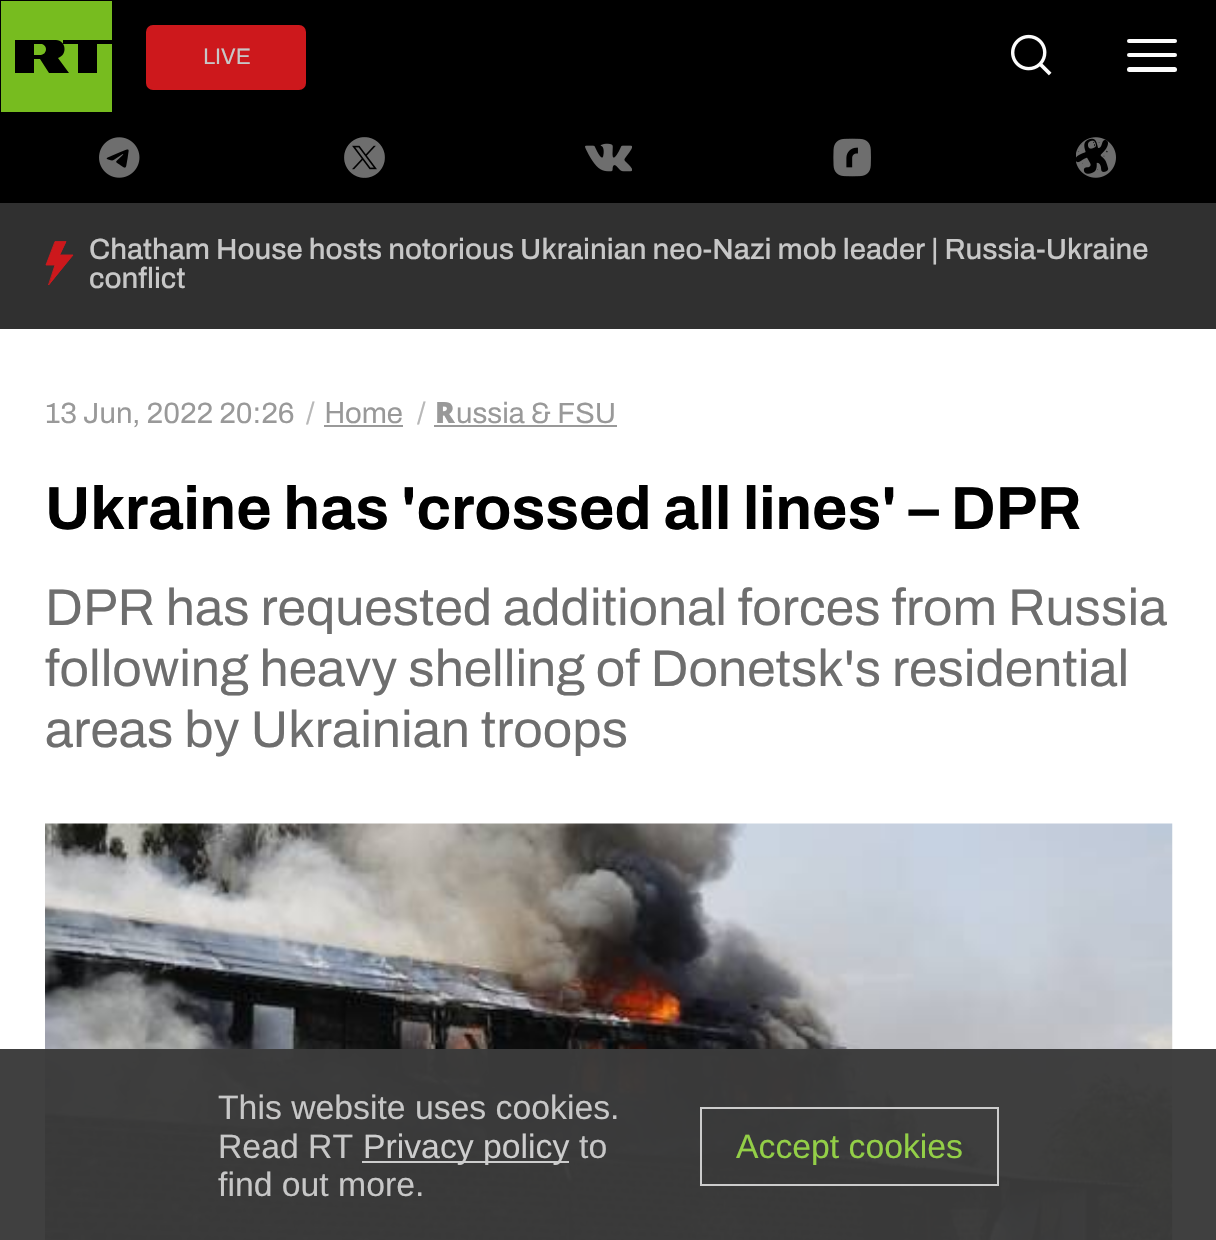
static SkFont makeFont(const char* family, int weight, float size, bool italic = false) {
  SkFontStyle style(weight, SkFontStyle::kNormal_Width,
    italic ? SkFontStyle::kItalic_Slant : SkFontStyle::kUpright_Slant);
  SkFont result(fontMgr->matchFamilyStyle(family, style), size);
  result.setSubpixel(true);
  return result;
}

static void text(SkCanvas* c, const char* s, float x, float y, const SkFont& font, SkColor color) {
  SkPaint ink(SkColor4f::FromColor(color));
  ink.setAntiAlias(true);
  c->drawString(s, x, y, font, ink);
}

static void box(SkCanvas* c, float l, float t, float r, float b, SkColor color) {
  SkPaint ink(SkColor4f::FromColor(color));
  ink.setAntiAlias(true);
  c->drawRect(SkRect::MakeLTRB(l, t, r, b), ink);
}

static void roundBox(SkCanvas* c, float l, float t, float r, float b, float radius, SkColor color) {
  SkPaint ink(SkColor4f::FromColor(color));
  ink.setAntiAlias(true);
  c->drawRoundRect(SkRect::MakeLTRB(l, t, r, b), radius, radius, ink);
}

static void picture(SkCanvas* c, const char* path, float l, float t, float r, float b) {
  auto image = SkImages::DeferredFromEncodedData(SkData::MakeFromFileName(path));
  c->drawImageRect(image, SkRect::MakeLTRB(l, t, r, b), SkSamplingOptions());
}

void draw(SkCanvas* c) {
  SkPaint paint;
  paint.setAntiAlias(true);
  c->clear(0xffffffff);
  box(c, 0, 0, 1216, 203, 0xff000000);
  box(c, 1, 1, 112, 112, 0xff77bc1f);
  paint.setColor(0xff000000);
  c->drawPath(SkPathBuilder().moveTo(56, 40).cubicTo(66, 40, 68, 55, 58, 58).lineTo(69, 73).lineTo(49, 73).lineTo(40, 59).lineTo(34, 59).lineTo(34, 73).lineTo(15, 73).lineTo(15, 40).close().moveTo(41, 55).cubicTo(47, 54, 48, 46, 42, 44).lineTo(34, 44).lineTo(34, 55).close().detach(), paint);
  c->drawPath(SkPathBuilder().moveTo(63, 40).lineTo(63, 44).lineTo(78, 44).lineTo(78, 73).lineTo(97, 73).lineTo(97, 44).lineTo(112, 44).lineTo(112, 40).close().detach(), paint);
  roundBox(c, 146, 25, 306, 90, 7, 0xffcd181c);
  SkFont face1 = makeFont("Archivo", 400, 22.5f);
  text(c, "LIVE", 203, 64, face1, 0xffc7c7c7);
  picture(c, "img_01.png", 1011, 34, 1052, 76);
  roundBox(c, 1127, 39, 1177, 43, 2, 0xfffcfcfc);
  roundBox(c, 1127, 53, 1177, 57, 2, 0xfffcfcfc);
  roundBox(c, 1127, 67, 1177, 72, 2.5f, 0xfffcfcfc);
  picture(c, "img_02.png", 99, 137, 140, 178);
  picture(c, "img_03.png", 344, 137, 385, 178);
  picture(c, "img_04.png", 585, 143, 632, 172);
  picture(c, "img_05.png", 833, 138, 871, 177);
  picture(c, "img_06.png", 1076, 137, 1116, 178);
  box(c, 0, 203, 1216, 329, 0xff303030);
  paint.setColor(0xffcd181c);
  c->drawPath(SkPathBuilder().moveTo(66, 242).lineTo(55, 242).lineTo(46, 265).lineTo(55, 265).lineTo(49, 285).lineTo(73, 255).lineTo(60, 255).close().detach(), paint);
  paint.setStyle(SkPaint::kStroke_Style);
  paint.setStrokeWidth(0.9f);
  paint.setStrokeJoin(SkPaint::kRound_Join);
  c->drawPath(SkPathBuilder().moveTo(66, 241.5f).lineTo(55, 241.5f).lineTo(46, 265).lineTo(55, 265).lineTo(48.5f, 285).lineTo(73, 255).lineTo(59.5f, 255).close().detach(), paint);
  SkFont face2 = makeFont("Archivo", 500, 29.25f);
  text(c, "Chatham House hosts notorious Ukrainian neo-Nazi mob leader | Russia-Ukraine", 89, 259, face2, 0xffc7c7c7);
  text(c, "conflict", 89, 288, face2, 0xffc7c7c7);
  SkFont face3 = makeFont("Archivo", 400, 29.25f);
  text(c, "13 Jun, 2022 20:26", 45, 423, face3, 0xff999999);
  text(c, "/", 306, 423, face3, 0xffb8b8b8);
  SkFont face4 = makeFont("Noto Sans", 400, 29.25f);
  text(c, "H", 324, 423, face4, 0xff999999);
  box(c, 324, 425, 403, 427, 0xff999999);
  text(c, "ome", 345, 423, face3, 0xff999999);
  text(c, "/", 417, 423, face3, 0xffb8b8b8);
  SkFont face5 = makeFont("Noto Sans", 900, 29.25f);
  text(c, "R", 435, 423, face5, 0xff999999);
  box(c, 434, 425, 617, 427, 0xff999999);
  text(c, "ussia & FSU", 456, 423, face3, 0xff999999);
  SkFont face6 = makeFont("Archivo", 700, 60.75f);
  text(c, "Ukraine has 'crossed all lines' – DPR", 45, 529, face6, 0xff000000);
  SkFont face7 = makeFont("Archivo", 400, 51.75f);
  text(c, "DPR has requested additional forces from Russia", 45, 625, face7, 0xff6e6e6e);
  text(c, "following heavy shelling of Donetsk's residential", 45, 686, face7, 0xff6e6e6e);
  text(c, "areas by Ukrainian troops", 45, 747, face7, 0xff6e6e6e);
  picture(c, "img_07.png", 45, 823, 1173, 1240);
  box(c, 0, 1049, 1216, 1240, 0xf73a3a3a);
  SkFont face8 = makeFont("Liberation Sans", 400, 33.75f);
  text(c, "This website uses cookies.", 218, 1119, face8, 0xffc7c7c7);
  text(c, "Read RT", 218, 1158, face8, 0xffc7c7c7);
  box(c, 362, 1161, 569, 1163, 0xf7d1d1d1);
  text(c, "Privacy policy", 363, 1158, face8, 0xffcdcdcd);
  text(c, "to", 579, 1158, face8, 0xffc7c7c7);
  text(c, "find out more.", 218, 1196, face8, 0xffc7c7c7);
  paint.setStrokeWidth(2);
  paint.setStrokeJoin(SkPaint::kMiter_Join);
  paint.setColor(0xf7d1d1d1);
  c->drawRect(SkRect::MakeLTRB(701, 1108, 998, 1185), paint);
  text(c, "Accept cookies", 736, 1158, face8, 0xff93cf47);
}
